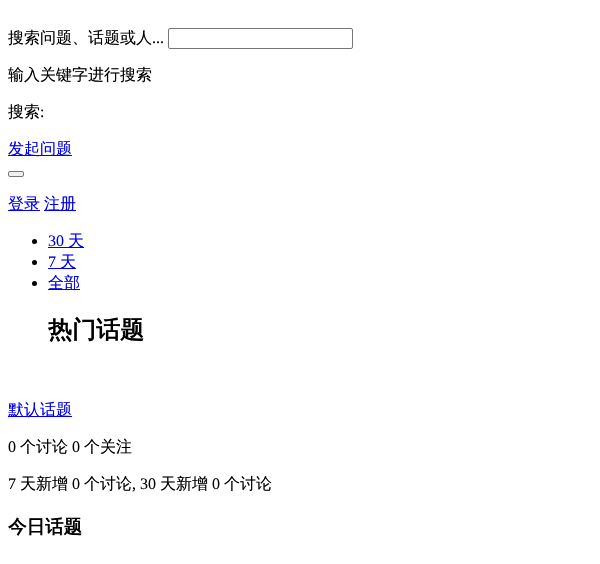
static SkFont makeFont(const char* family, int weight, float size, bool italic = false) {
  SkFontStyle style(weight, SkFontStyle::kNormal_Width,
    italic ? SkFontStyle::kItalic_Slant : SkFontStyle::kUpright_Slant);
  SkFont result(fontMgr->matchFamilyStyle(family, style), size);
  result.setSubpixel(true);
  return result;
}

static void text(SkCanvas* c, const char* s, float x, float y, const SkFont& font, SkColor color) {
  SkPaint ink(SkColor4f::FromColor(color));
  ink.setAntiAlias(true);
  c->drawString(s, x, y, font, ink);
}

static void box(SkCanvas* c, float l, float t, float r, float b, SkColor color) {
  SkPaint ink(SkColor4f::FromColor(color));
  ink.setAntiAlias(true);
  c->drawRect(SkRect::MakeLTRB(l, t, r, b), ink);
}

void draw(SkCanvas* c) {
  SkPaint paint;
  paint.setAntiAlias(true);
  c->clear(0xffffffff);
  SkFont face1 = makeFont("WenQuanYi Zen Hei", 500, 16);
  text(c, "搜索问题、话题或人", 8, 43, face1, 0xff000000);
  SkFont face2 = makeFont("Liberation Serif", 400, 16);
  text(c, "...", 152, 43, face2, 0xff000000);
  paint.setStyle(SkPaint::kStroke_Style);
  paint.setStrokeWidth(1);
  paint.setColor(0xff767676);
  c->drawRoundRect(SkRect::MakeLTRB(168.5f, 28.5f, 352.5f, 48.5f), 1.5f, 1.5f, paint);
  text(c, "输入关键字进行搜索", 8, 80, face1, 0xff000000);
  text(c, "搜索", 8, 117, face1, 0xff000000);
  text(c, ":", 40, 117, face2, 0xff000000);
  box(c, 8, 155, 72, 156, 0xff0000ee);
  text(c, "发起问题", 8, 154, face1, 0xff0000ee);
  paint.setStyle(SkPaint::kFill_Style);
  paint.setColor(0xffefefef);
  c->drawRoundRect(SkRect::MakeLTRB(8.5f, 171.5f, 23.5f, 176.5f), 1.5f, 1.5f, paint);
  paint.setStyle(SkPaint::kStroke_Style);
  paint.setColor(0xff767676);
  c->drawRoundRect(SkRect::MakeLTRB(8.5f, 171.5f, 23.5f, 176.5f), 1.5f, 1.5f, paint);
  box(c, 8, 210, 40, 211, 0xff0000ee);
  text(c, "登录", 8, 209, face1, 0xff0000ee);
  box(c, 44, 210, 76, 211, 0xff0000ee);
  text(c, "注册", 44, 209, face1, 0xff0000ee);
  paint.setStyle(SkPaint::kFill_Style);
  paint.setColor(0xff000000);
  c->drawCircle(34.5f, 241.5f, 2.5f, paint);
  text(c, "30", 48, 246, face2, 0xff0000ee);
  box(c, 48, 247, 84, 248, 0xff0000ee);
  text(c, "天", 68, 246, face1, 0xff0000ee);
  c->drawCircle(34.5f, 262.5f, 2.5f, paint);
  text(c, "7", 48, 267, face2, 0xff0000ee);
  box(c, 48, 268, 76, 269, 0xff0000ee);
  text(c, "天", 60, 267, face1, 0xff0000ee);
  c->drawCircle(34.5f, 283.5f, 2.5f, paint);
  box(c, 48, 289, 80, 290, 0xff0000ee);
  text(c, "全部", 48, 288, face1, 0xff0000ee);
  SkFont face3 = makeFont("WenQuanYi Zen Hei", 700, 24);
  text(c, "热门话题", 48, 338, face3, 0xff000000);
  box(c, 8, 416, 72, 417, 0xff0000ee);
  text(c, "默认话题", 8, 415, face1, 0xff0000ee);
  text(c, "0", 8, 452, face2, 0xff000000);
  text(c, "个讨论", 20, 452, face1, 0xff000000);
  text(c, "0", 72, 452, face2, 0xff000000);
  text(c, "个关注", 84, 452, face1, 0xff000000);
  text(c, "7", 8, 489, face2, 0xff000000);
  text(c, "天新增", 20, 489, face1, 0xff000000);
  text(c, "0", 72, 489, face2, 0xff000000);
  text(c, "个讨论", 84, 489, face1, 0xff000000);
  text(c, ", 30", 132, 489, face2, 0xff000000);
  text(c, "天新增", 160, 489, face1, 0xff000000);
  text(c, "0", 212, 489, face2, 0xff000000);
  text(c, "个讨论", 224, 489, face1, 0xff000000);
  SkFont face4 = makeFont("WenQuanYi Zen Hei", 700, 18.5f);
  text(c, "今日话题", 8, 533, face4, 0xff000000);
}
